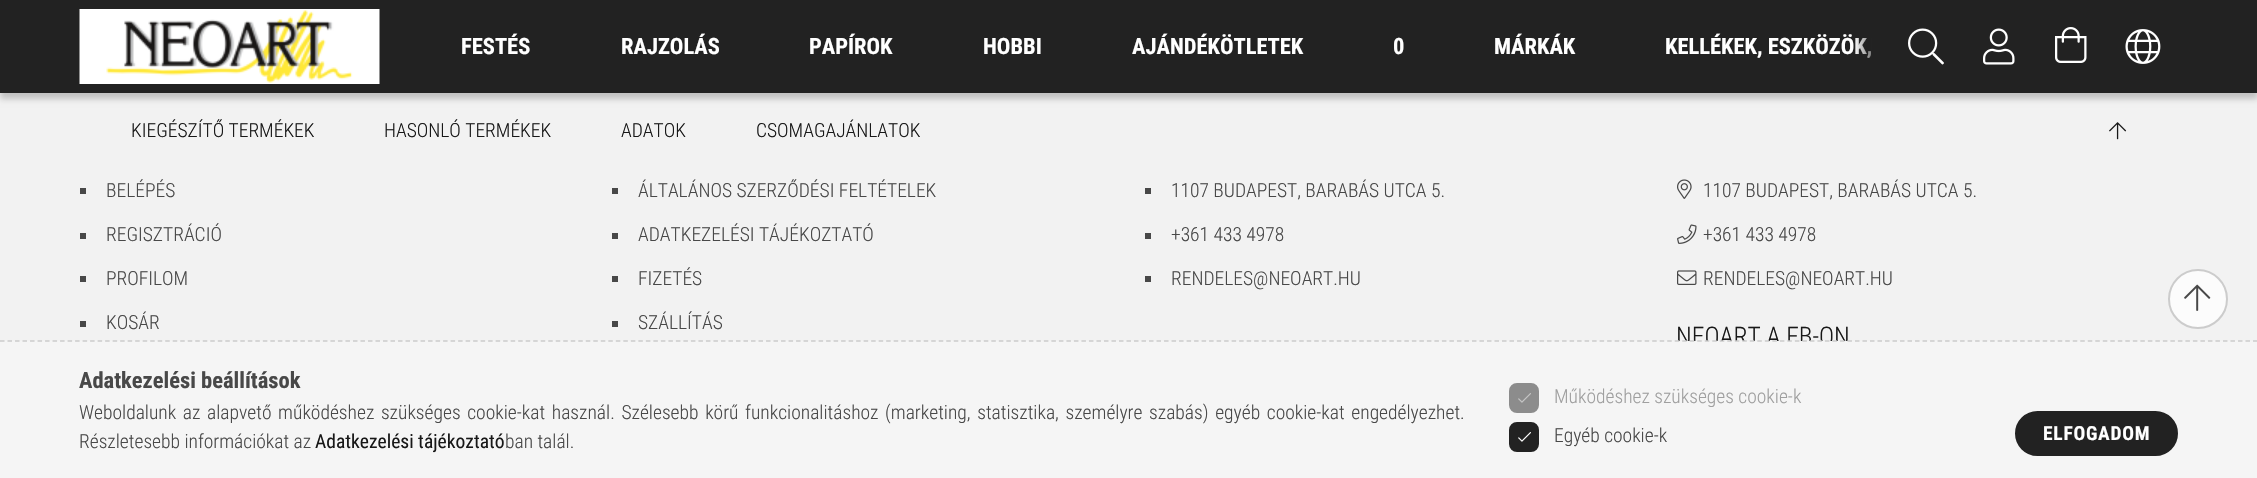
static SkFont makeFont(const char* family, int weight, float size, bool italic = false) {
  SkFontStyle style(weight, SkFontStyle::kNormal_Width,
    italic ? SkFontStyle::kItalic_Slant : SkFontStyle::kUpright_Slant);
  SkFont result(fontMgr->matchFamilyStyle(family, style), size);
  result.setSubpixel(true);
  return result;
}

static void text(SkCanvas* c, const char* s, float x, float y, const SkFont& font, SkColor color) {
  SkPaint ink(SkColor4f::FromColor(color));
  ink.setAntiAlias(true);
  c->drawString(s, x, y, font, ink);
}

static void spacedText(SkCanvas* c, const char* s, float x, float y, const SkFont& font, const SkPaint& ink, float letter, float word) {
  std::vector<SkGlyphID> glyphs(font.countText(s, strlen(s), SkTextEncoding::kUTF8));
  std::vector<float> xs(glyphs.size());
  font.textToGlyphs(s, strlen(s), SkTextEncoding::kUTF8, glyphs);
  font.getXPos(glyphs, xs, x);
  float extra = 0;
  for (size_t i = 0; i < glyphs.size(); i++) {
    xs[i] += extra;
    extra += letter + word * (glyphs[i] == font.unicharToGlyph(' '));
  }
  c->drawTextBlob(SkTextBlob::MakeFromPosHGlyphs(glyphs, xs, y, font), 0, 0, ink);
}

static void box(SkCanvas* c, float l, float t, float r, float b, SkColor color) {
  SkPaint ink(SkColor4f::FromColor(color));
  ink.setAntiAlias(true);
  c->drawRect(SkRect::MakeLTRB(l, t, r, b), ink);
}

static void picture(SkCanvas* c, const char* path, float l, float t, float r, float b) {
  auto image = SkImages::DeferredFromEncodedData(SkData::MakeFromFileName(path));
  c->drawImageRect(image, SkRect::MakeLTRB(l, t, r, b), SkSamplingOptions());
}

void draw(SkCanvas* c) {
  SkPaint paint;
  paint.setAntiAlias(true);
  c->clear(0xfff2f2f2);
  paint.setColor(0x33000000);
  paint.setMaskFilter(SkMaskFilter::MakeBlur(kNormal_SkBlurStyle, 3));
  c->drawRect(SkRect::MakeLTRB(0, 6, 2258, 99), paint);
  paint.setMaskFilter(nullptr);
  box(c, 0, 0, 2257, 93, 0xff222222);
  picture(c, "img_01.png", 79, 9, 380, 84);
  SkFont face1 = makeFont("Roboto Condensed", 700, 22.5f);
  text(c, "FESTÉS", 461, 54, face1, 0xffffffff);
  text(c, "RAJZOLÁS", 621, 54, face1, 0xffffffff);
  text(c, "PAPÍROK", 809, 54, face1, 0xffffffff);
  text(c, "HOBBI", 983, 54, face1, 0xffffffff);
  text(c, "AJÁNDÉKÖTLETEK", 1132, 54, face1, 0xffffffff);
  c->save();
  c->clipRect(SkRect::MakeLTRB(1394, 33, 1404, 60));
  text(c, "0", 1393, 54, face1, 0xffffffff);
  c->restore();
  text(c, "MÁRKÁK", 1494, 54, face1, 0xffffffff);
  text(c, "KELLÉKEK, ESZKÖZÖK,", 1665, 54, face1, 0xffffffff);
  {
    const SkColor colors[] = {0x00222222, 0xff222222};
    const float stops[] = {0, 0.8f};
    const SkPoint ends[] = {{1854, 47}, {1892, 47}};
    paint.setShader(SkGradientShader::MakeLinear(ends, colors, stops, 2, SkTileMode::kClamp));
    paint.setAlpha(255);
  }
  c->drawRect(SkRect::MakeLTRB(1856, 38, 1872, 58), paint);
  picture(c, "img_02.png", 1908, 28, 1944, 65);
  picture(c, "img_03.png", 1983, 28, 2015, 65);
  picture(c, "img_04.png", 2055, 27, 2087, 63);
  picture(c, "img_05.png", 2125, 29, 2161, 64);
  SkFont face2 = makeFont("Roboto Condensed", 300, 19.5f);
  text(c, "KIEGÉSZÍTŐ TERMÉKEK", 131, 137, face2, 0xff181818);
  text(c, "HASONLÓ TERMÉKEK", 384, 137, face2, 0xff181818);
  text(c, "ADATOK", 621, 137, face2, 0xff181818);
  text(c, "CSOMAGAJÁNLATOK", 756, 137, face2, 0xff181818);
  picture(c, "img_06.png", 2109, 122, 2127, 140);
  box(c, 80, 188, 86, 194, 0xff484848);
  text(c, "BELÉPÉS", 106, 197, face2, 0xff484848);
  box(c, 80, 233, 86, 239, 0xff484848);
  text(c, "REGISZTRÁCIÓ", 106, 241, face2, 0xff484848);
  box(c, 80, 276, 86, 282, 0xff484848);
  text(c, "PROFILOM", 106, 285, face2, 0xff484848);
  box(c, 80, 321, 86, 327, 0xff484848);
  text(c, "KOSÁR", 106, 329, face2, 0xff484848);
  box(c, 612, 188, 618, 194, 0xff484848);
  text(c, "ÁLTALÁNOS SZERZŐDÉSI FELTÉTELEK", 638, 197, face2, 0xff484848);
  box(c, 612, 233, 618, 239, 0xff484848);
  text(c, "ADATKEZELÉSI TÁJÉKOZTATÓ", 638, 241, face2, 0xff484848);
  box(c, 612, 276, 618, 282, 0xff484848);
  text(c, "FIZETÉS", 638, 285, face2, 0xff484848);
  box(c, 612, 321, 618, 327, 0xff484848);
  text(c, "SZÁLLÍTÁS", 638, 329, face2, 0xff484848);
  box(c, 1145, 188, 1151, 194, 0xff484848);
  text(c, "1107 BUDAPEST, BARABÁS UTCA 5.", 1171, 197, face2, 0xff484848);
  box(c, 1145, 233, 1151, 239, 0xff484848);
  text(c, "+361 433 4978", 1171, 241, face2, 0xff484848);
  box(c, 1145, 276, 1151, 282, 0xff484848);
  text(c, "RENDELES@NEOART.HU", 1171, 285, face2, 0xff484848);
  picture(c, "img_07.png", 1677, 179, 1692, 199);
  text(c, "1107 BUDAPEST, BARABÁS UTCA 5.", 1703, 197, face2, 0xff484848);
  picture(c, "img_08.png", 1677, 224, 1697, 244);
  text(c, "+361 433 4978", 1703, 241, face2, 0xff484848);
  picture(c, "img_09.png", 1677, 270, 1697, 285);
  text(c, "RENDELES@NEOART.HU", 1703, 285, face2, 0xff484848);
  SkFont face3 = makeFont("Roboto Condensed", 300, 25.5f);
  text(c, "NEOART A FB-ON", 1676, 345, face3, 0xff181818);
  paint.setShader(nullptr);
  paint.setColor(0xfffcfcfc);
  c->drawCircle(2198, 299, 29, paint);
  paint.setStyle(SkPaint::kStroke_Style);
  paint.setStrokeWidth(2);
  paint.setColor(0xffcccccc);
  c->drawCircle(2198, 299, 29, paint);
  picture(c, "img_10.png", 2184, 284, 2211, 311);
  box(c, 0, 341, 2257, 478, 0xfff5f5f5);
  paint.setStrokeWidth(1.5f);
  paint.setPathEffect(SkDashPathEffect::Make({{4.5f, 3.01f}}, 0));
  c->drawPath(SkPathBuilder().moveTo(0, 341).lineTo(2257.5f, 341).detach(), paint);
  paint.setPathEffect(nullptr);
  text(c, "Adatkezelési beállítások", 79, 388, face1, 0xff484848);
  paint.setStyle(SkPaint::kFill_Style);
  paint.setColor(0xff484848);
  spacedText(c, "Weboldalunk az alapvető működéshez szükséges cookie-kat használ. Szélesebb körű funkcionalitáshoz (marketing, statisztika, személyre szabás) egyéb cookie-kat engedélyezhet.", 79, 419, face2, paint, 0, 2.25f);
  text(c, "Részletesebb információkat az", 79, 448, face2, 0xff484848);
  SkFont face4 = makeFont("Roboto Condensed", 400, 19.5f);
  text(c, "Adatkezelési tájékoztató", 315, 448, face4, 0xff181818);
  text(c, "ban talál.", 505, 448, face2, 0xff484848);
  paint.setColor(0xff8c8c8c);
  c->drawRoundRect(SkRect::MakeLTRB(1510, 384, 1538, 412), 7, 7, paint);
  paint.setStyle(SkPaint::kStroke_Style);
  paint.setStrokeWidth(2);
  c->drawRoundRect(SkRect::MakeLTRB(1510, 384, 1538, 412), 7, 7, paint);
  picture(c, "img_11.png", 1518, 393, 1531, 403);
  text(c, "Működéshez szükséges cookie-k", 1554, 403, face2, 0xff9f9f9f);
  paint.setStyle(SkPaint::kFill_Style);
  paint.setColor(0xff222222);
  c->drawRoundRect(SkRect::MakeLTRB(1510, 423, 1538, 451), 7, 7, paint);
  paint.setStyle(SkPaint::kStroke_Style);
  c->drawRoundRect(SkRect::MakeLTRB(1510, 423, 1538, 451), 7, 7, paint);
  picture(c, "img_12.png", 1518, 432, 1531, 442);
  text(c, "Egyéb cookie-k", 1554, 442, face2, 0xff484848);
  paint.setStyle(SkPaint::kFill_Style);
  c->drawRoundRect(SkRect::MakeLTRB(2016, 412, 2177, 455), 21.5f, 21.5f, paint);
  paint.setStyle(SkPaint::kStroke_Style);
  c->drawRoundRect(SkRect::MakeLTRB(2016, 412, 2177, 455), 21.5f, 21.5f, paint);
  SkFont face5 = makeFont("Roboto Condensed", 700, 19.5f);
  paint.setStyle(SkPaint::kFill_Style);
  paint.setColor(0xffffffff);
  spacedText(c, "ELFOGADOM", 2043, 440, face5, paint, 0.75f, 0);
}
